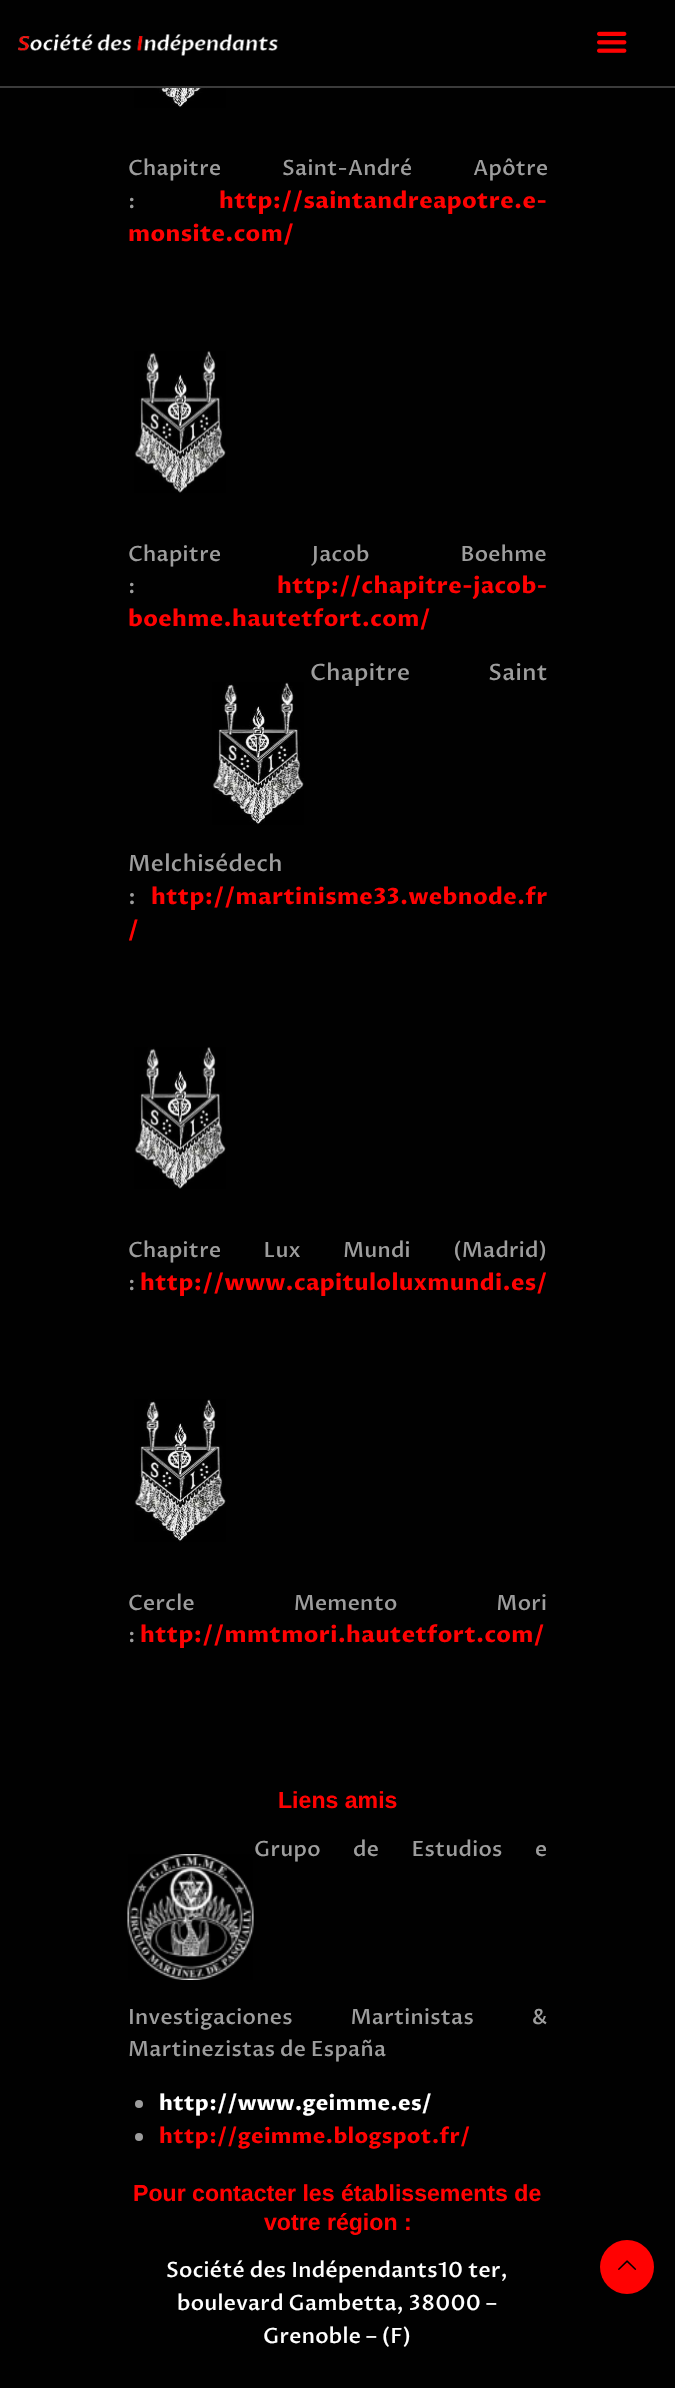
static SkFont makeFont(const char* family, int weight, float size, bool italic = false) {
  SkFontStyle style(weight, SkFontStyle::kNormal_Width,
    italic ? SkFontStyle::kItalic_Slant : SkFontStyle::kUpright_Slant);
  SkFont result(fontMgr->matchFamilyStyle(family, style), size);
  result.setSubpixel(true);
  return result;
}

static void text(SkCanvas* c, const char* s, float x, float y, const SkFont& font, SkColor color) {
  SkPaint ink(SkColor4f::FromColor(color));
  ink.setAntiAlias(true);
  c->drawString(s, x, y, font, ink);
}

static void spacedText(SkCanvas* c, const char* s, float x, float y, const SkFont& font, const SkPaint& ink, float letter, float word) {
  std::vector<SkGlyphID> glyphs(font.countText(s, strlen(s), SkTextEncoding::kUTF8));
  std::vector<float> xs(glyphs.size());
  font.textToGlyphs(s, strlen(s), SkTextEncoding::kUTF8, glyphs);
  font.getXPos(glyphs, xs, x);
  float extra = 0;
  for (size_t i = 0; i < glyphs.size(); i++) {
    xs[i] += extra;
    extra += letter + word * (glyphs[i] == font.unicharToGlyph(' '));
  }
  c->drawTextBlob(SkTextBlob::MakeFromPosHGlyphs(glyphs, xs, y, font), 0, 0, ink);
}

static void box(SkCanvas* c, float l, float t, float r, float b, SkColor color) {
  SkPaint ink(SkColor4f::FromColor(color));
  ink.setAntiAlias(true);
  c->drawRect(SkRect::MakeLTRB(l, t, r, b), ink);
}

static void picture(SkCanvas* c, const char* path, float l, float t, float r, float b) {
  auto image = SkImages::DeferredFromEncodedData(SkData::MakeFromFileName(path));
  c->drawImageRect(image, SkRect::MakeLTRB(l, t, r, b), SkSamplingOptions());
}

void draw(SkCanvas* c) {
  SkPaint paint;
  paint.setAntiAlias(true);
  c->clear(0xff010101);
  box(c, 0, 86, 675, 88, 0xff3b3b3b);
  picture(c, "img_01.png", 18, 34, 278, 56);
  picture(c, "img_02.png", 597, 31, 627, 53);
  picture(c, "img_03.png", 134, 88, 226, 108);
  SkFont face1 = makeFont("Proza Libre", 500, 21);
  paint.setColor(0xff9d9d9d);
  spacedText(c, "Chapitre Saint-André Apôtre", 128, 175, face1, paint, 0.3f, 56);
  spacedText(c, ":", 128, 208, face1, paint, 0.3f, 0);
  SkFont face2 = makeFont("Proza Libre", 700, 22.5f);
  paint.setColor(0xffff0202);
  spacedText(c, "http://saintandreapotre.e-", 219, 208, face2, paint, 0.35f, 0);
  spacedText(c, "monsite.com/", 128, 241, face2, paint, 0.35f, 0);
  picture(c, "img_04.png", 134, 351, 226, 493);
  paint.setColor(0xff9d9d9d);
  spacedText(c, "Chapitre Jacob Boehme", 128, 561, face1, paint, 0.3f, 86);
  spacedText(c, ":", 128, 593, face1, paint, 0.3f, 0);
  paint.setColor(0xffff0202);
  spacedText(c, "http://chapitre-jacob-", 277, 593, face2, paint, 0.35f, 0);
  spacedText(c, "boehme.hautetfort.com/", 128, 626, face2, paint, 0.35f, 0);
  SkFont face3 = makeFont("Proza Libre", 500, 22.5f);
  paint.setColor(0xff9d9d9d);
  spacedText(c, "Chapitre Saint", 310, 680, face3, paint, 0.35f, 73);
  picture(c, "img_05.png", 212, 682, 304, 825);
  spacedText(c, "Melchisédech", 128, 871, face3, paint, 0.35f, 0);
  spacedText(c, ":", 128, 904, face3, paint, 0.35f, 0);
  paint.setColor(0xffff0202);
  spacedText(c, "http://martinisme33.webnode.fr", 151, 904, face2, paint, 0.35f, 0);
  spacedText(c, "/", 128, 937, face2, paint, 0.35f, 0);
  picture(c, "img_04.png", 134, 1047, 226, 1189);
  paint.setColor(0xff9d9d9d);
  spacedText(c, "Chapitre Lux Mundi (Madrid)", 128, 1257, face1, paint, 0.3f, 37.5f);
  spacedText(c, ":", 128, 1290, face1, paint, 0.3f, 0);
  paint.setColor(0xffff0202);
  spacedText(c, "http://www.capituloluxmundi.es/", 140, 1290, face2, paint, 0.35f, 0);
  picture(c, "img_05.png", 134, 1399, 226, 1542);
  paint.setColor(0xff9d9d9d);
  spacedText(c, "Cercle Memento Mori", 128, 1610, face1, paint, 0.3f, 94);
  spacedText(c, ":", 128, 1642, face1, paint, 0.3f, 0);
  paint.setColor(0xffff0202);
  spacedText(c, "http://mmtmori.hautetfort.com/", 140, 1642, face2, paint, 0.35f, 0);
  SkFont face4 = makeFont("Liberation Sans", 700, 23.1f);
  text(c, "Liens amis", 278, 1808, face4, 0xffff0202);
  paint.setColor(0xff9d9d9d);
  spacedText(c, "Grupo de Estudios e", 254, 1856, face1, paint, 0.3f, 27.5f);
  picture(c, "img_06.png", 127, 1854, 254, 1980);
  spacedText(c, "Investigaciones Martinistas &", 128, 2024, face1, paint, 0.3f, 53);
  spacedText(c, "Martinezistas de España", 128, 2056, face1, paint, 0.3f, 0);
  c->drawCircle(139, 2104, 4, paint);
  SkFont face5 = makeFont("Proza Libre", 700, 21);
  paint.setColor(0xffffffff);
  spacedText(c, "http://www.geimme.es/", 159, 2110, face5, paint, 0.3f, 0);
  paint.setColor(0xff9d9d9d);
  c->drawCircle(139, 2137, 4, paint);
  paint.setColor(0xffff0202);
  spacedText(c, "http://geimme.blogspot.fr/", 159, 2143, face5, paint, 0.3f, 0);
  text(c, "Pour contacter les établissements de", 133, 2201, face4, 0xffff0202);
  text(c, "votre région :", 264, 2230, face4, 0xffff0202);
  paint.setColor(0xffffffff);
  spacedText(c, "Société des Indépendants10 ter,", 166, 2277, face1, paint, 0.3f, 0);
  spacedText(c, "boulevard Gambetta, 38000 –", 177, 2310, face1, paint, 0.3f, 0);
  spacedText(c, "Grenoble – (F)", 263, 2343, face1, paint, 0.3f, 0);
  paint.setColor(0xffff0202);
  c->drawCircle(627, 2267, 27, paint);
  picture(c, "img_07.png", 618, 2260, 637, 2270);
}
